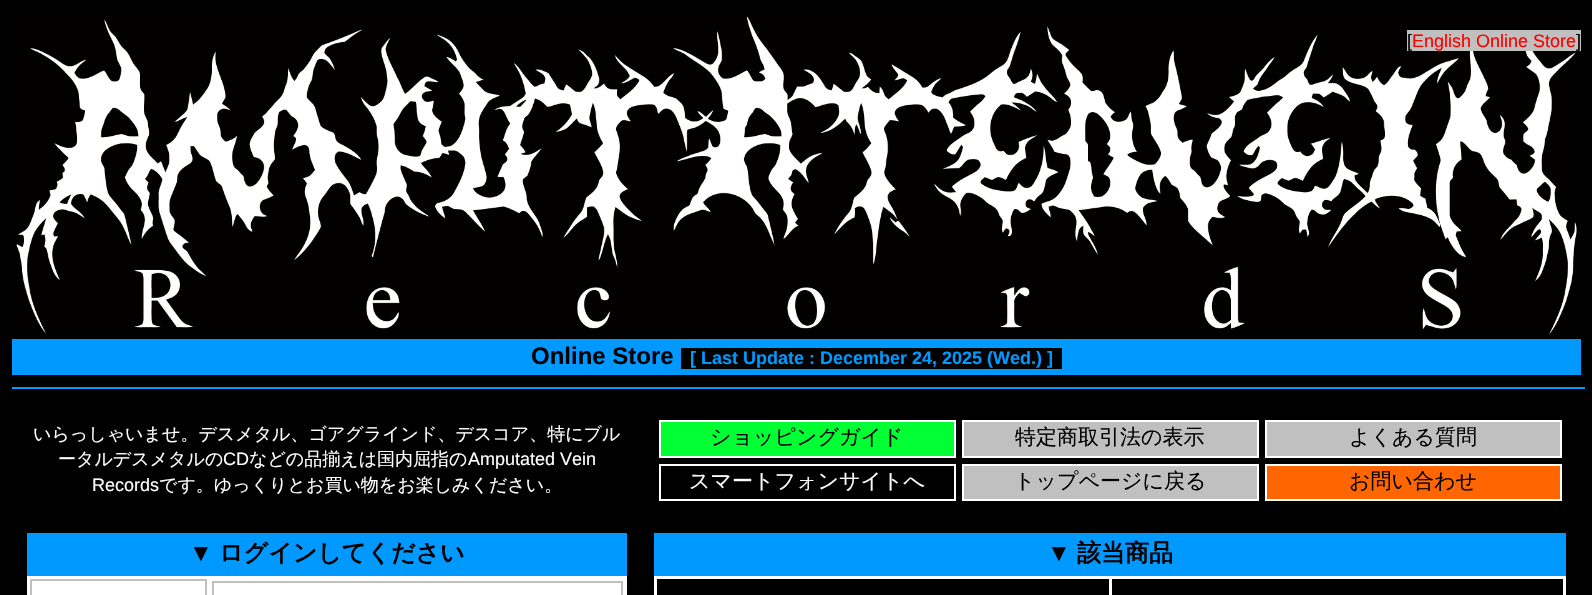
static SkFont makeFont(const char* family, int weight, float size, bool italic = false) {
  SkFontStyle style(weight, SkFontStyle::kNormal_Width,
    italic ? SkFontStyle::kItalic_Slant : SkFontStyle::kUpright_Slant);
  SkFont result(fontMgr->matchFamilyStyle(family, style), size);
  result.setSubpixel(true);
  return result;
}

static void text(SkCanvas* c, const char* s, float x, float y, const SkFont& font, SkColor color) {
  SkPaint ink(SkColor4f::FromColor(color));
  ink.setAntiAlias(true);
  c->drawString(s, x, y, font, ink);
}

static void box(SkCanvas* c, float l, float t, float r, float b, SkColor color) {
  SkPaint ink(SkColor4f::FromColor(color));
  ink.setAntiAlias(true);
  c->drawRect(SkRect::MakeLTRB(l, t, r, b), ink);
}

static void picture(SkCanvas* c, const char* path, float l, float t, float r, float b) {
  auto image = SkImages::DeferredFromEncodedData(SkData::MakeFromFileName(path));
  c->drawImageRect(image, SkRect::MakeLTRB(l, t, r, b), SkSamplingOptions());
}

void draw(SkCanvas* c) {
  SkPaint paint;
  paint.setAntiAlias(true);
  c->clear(0xff000000);
  picture(c, "img_01.png", 16, 16, 1577, 335);
  box(c, 1407, 30, 1581, 51, 0xffc0c0c0);
  SkFont face1 = makeFont("Liberation Sans", 400, 18);
  text(c, "[", 1407, 47, face1, 0xff000000);
  text(c, "English Online Store", 1412, 47, face1, 0xffff0000);
  text(c, "]", 1576, 47, face1, 0xff000000);
  box(c, 12, 339, 1581, 375, 0xff0099ff);
  SkFont face2 = makeFont("Liberation Sans", 700, 24);
  text(c, "Online Store", 531, 364, face2, 0xff000000);
  box(c, 681, 348, 1062, 369, 0xff000000);
  SkFont face3 = makeFont("Liberation Sans", 700, 18);
  text(c, "[ Last Update : December 24, 2025 (Wed.) ]", 690, 364, face3, 0xff0099ff);
  box(c, 12, 387, 1585, 389, 0xff0099ff);
  SkFont face4 = makeFont("WenQuanYi Zen Hei", 500, 18);
  text(c, "いらっしゃいませ。デスメタル、ゴアグラインド、デスコア、特にブル", 33, 440, face4, 0xffffffff);
  text(c, "ータルデスメタルの", 58, 465, face4, 0xffffffff);
  text(c, "CD", 223, 465, face1, 0xffffffff);
  text(c, "などの品揃えは国内屈指の", 249, 465, face4, 0xffffffff);
  text(c, "Amputated Vein", 468, 465, face1, 0xffffffff);
  text(c, "Records", 92, 491, face1, 0xffffffff);
  text(c, "です。ゆっくりとお買い物をお楽しみください。", 159, 491, face4, 0xffffffff);
  paint.setColor(0xff00ff33);
  c->drawRect(SkRect::MakeLTRB(660, 421, 955, 457), paint);
  paint.setStyle(SkPaint::kStroke_Style);
  paint.setStrokeWidth(2);
  paint.setColor(0xffffffff);
  c->drawRect(SkRect::MakeLTRB(660, 421, 955, 457), paint);
  SkFont face5 = makeFont("WenQuanYi Zen Hei", 500, 21);
  text(c, "ショッピングガイド", 710, 444, face5, 0xff000000);
  paint.setStyle(SkPaint::kFill_Style);
  paint.setColor(0xffc0c0c0);
  c->drawRect(SkRect::MakeLTRB(963, 421, 1258, 457), paint);
  paint.setStyle(SkPaint::kStroke_Style);
  paint.setColor(0xffffffff);
  c->drawRect(SkRect::MakeLTRB(963, 421, 1258, 457), paint);
  text(c, "特定商取引法の表示", 1015, 444, face5, 0xff000000);
  paint.setStyle(SkPaint::kFill_Style);
  paint.setColor(0xffc0c0c0);
  c->drawRect(SkRect::MakeLTRB(1266, 421, 1561, 457), paint);
  paint.setStyle(SkPaint::kStroke_Style);
  paint.setColor(0xffffffff);
  c->drawRect(SkRect::MakeLTRB(1266, 421, 1561, 457), paint);
  text(c, "よくある質問", 1349, 444, face5, 0xff000000);
  c->drawRect(SkRect::MakeLTRB(660, 465, 955, 500), paint);
  text(c, "スマートフォンサイトへ", 689, 488, face5, 0xffffffff);
  paint.setStyle(SkPaint::kFill_Style);
  paint.setColor(0xffc0c0c0);
  c->drawRect(SkRect::MakeLTRB(963, 465, 1258, 500), paint);
  paint.setStyle(SkPaint::kStroke_Style);
  paint.setColor(0xffffffff);
  c->drawRect(SkRect::MakeLTRB(963, 465, 1258, 500), paint);
  text(c, "トップページに戻る", 1014, 488, face5, 0xff000000);
  paint.setStyle(SkPaint::kFill_Style);
  paint.setColor(0xffff6600);
  c->drawRect(SkRect::MakeLTRB(1266, 465, 1561, 500), paint);
  paint.setStyle(SkPaint::kStroke_Style);
  paint.setColor(0xffffffff);
  c->drawRect(SkRect::MakeLTRB(1266, 465, 1561, 500), paint);
  text(c, "お問い合わせ", 1349, 488, face5, 0xff000000);
  box(c, 27, 533, 627, 576, 0xff0099ff);
  text(c, "▼", 189, 561, face2, 0xff000000);
  SkFont face6 = makeFont("WenQuanYi Zen Hei", 700, 24);
  text(c, "ログインしてください", 219, 561, face6, 0xff000000);
  box(c, 27, 576, 627, 595, 0xffffffff);
  paint.setColor(0xffc0c0c0);
  c->drawRect(SkRect::MakeLTRB(31, 580, 206, 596), paint);
  c->drawRect(SkRect::MakeLTRB(213, 582, 622, 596), paint);
  box(c, 654, 533, 1566, 576, 0xff0099ff);
  text(c, "▼", 1047, 561, face2, 0xff000000);
  text(c, "該当商品", 1077, 561, face6, 0xff000000);
  box(c, 654, 576, 1566, 595, 0xffffffff);
  box(c, 657, 579, 1109, 595, 0xff000000);
  box(c, 1112, 579, 1563, 595, 0xff000000);
}
